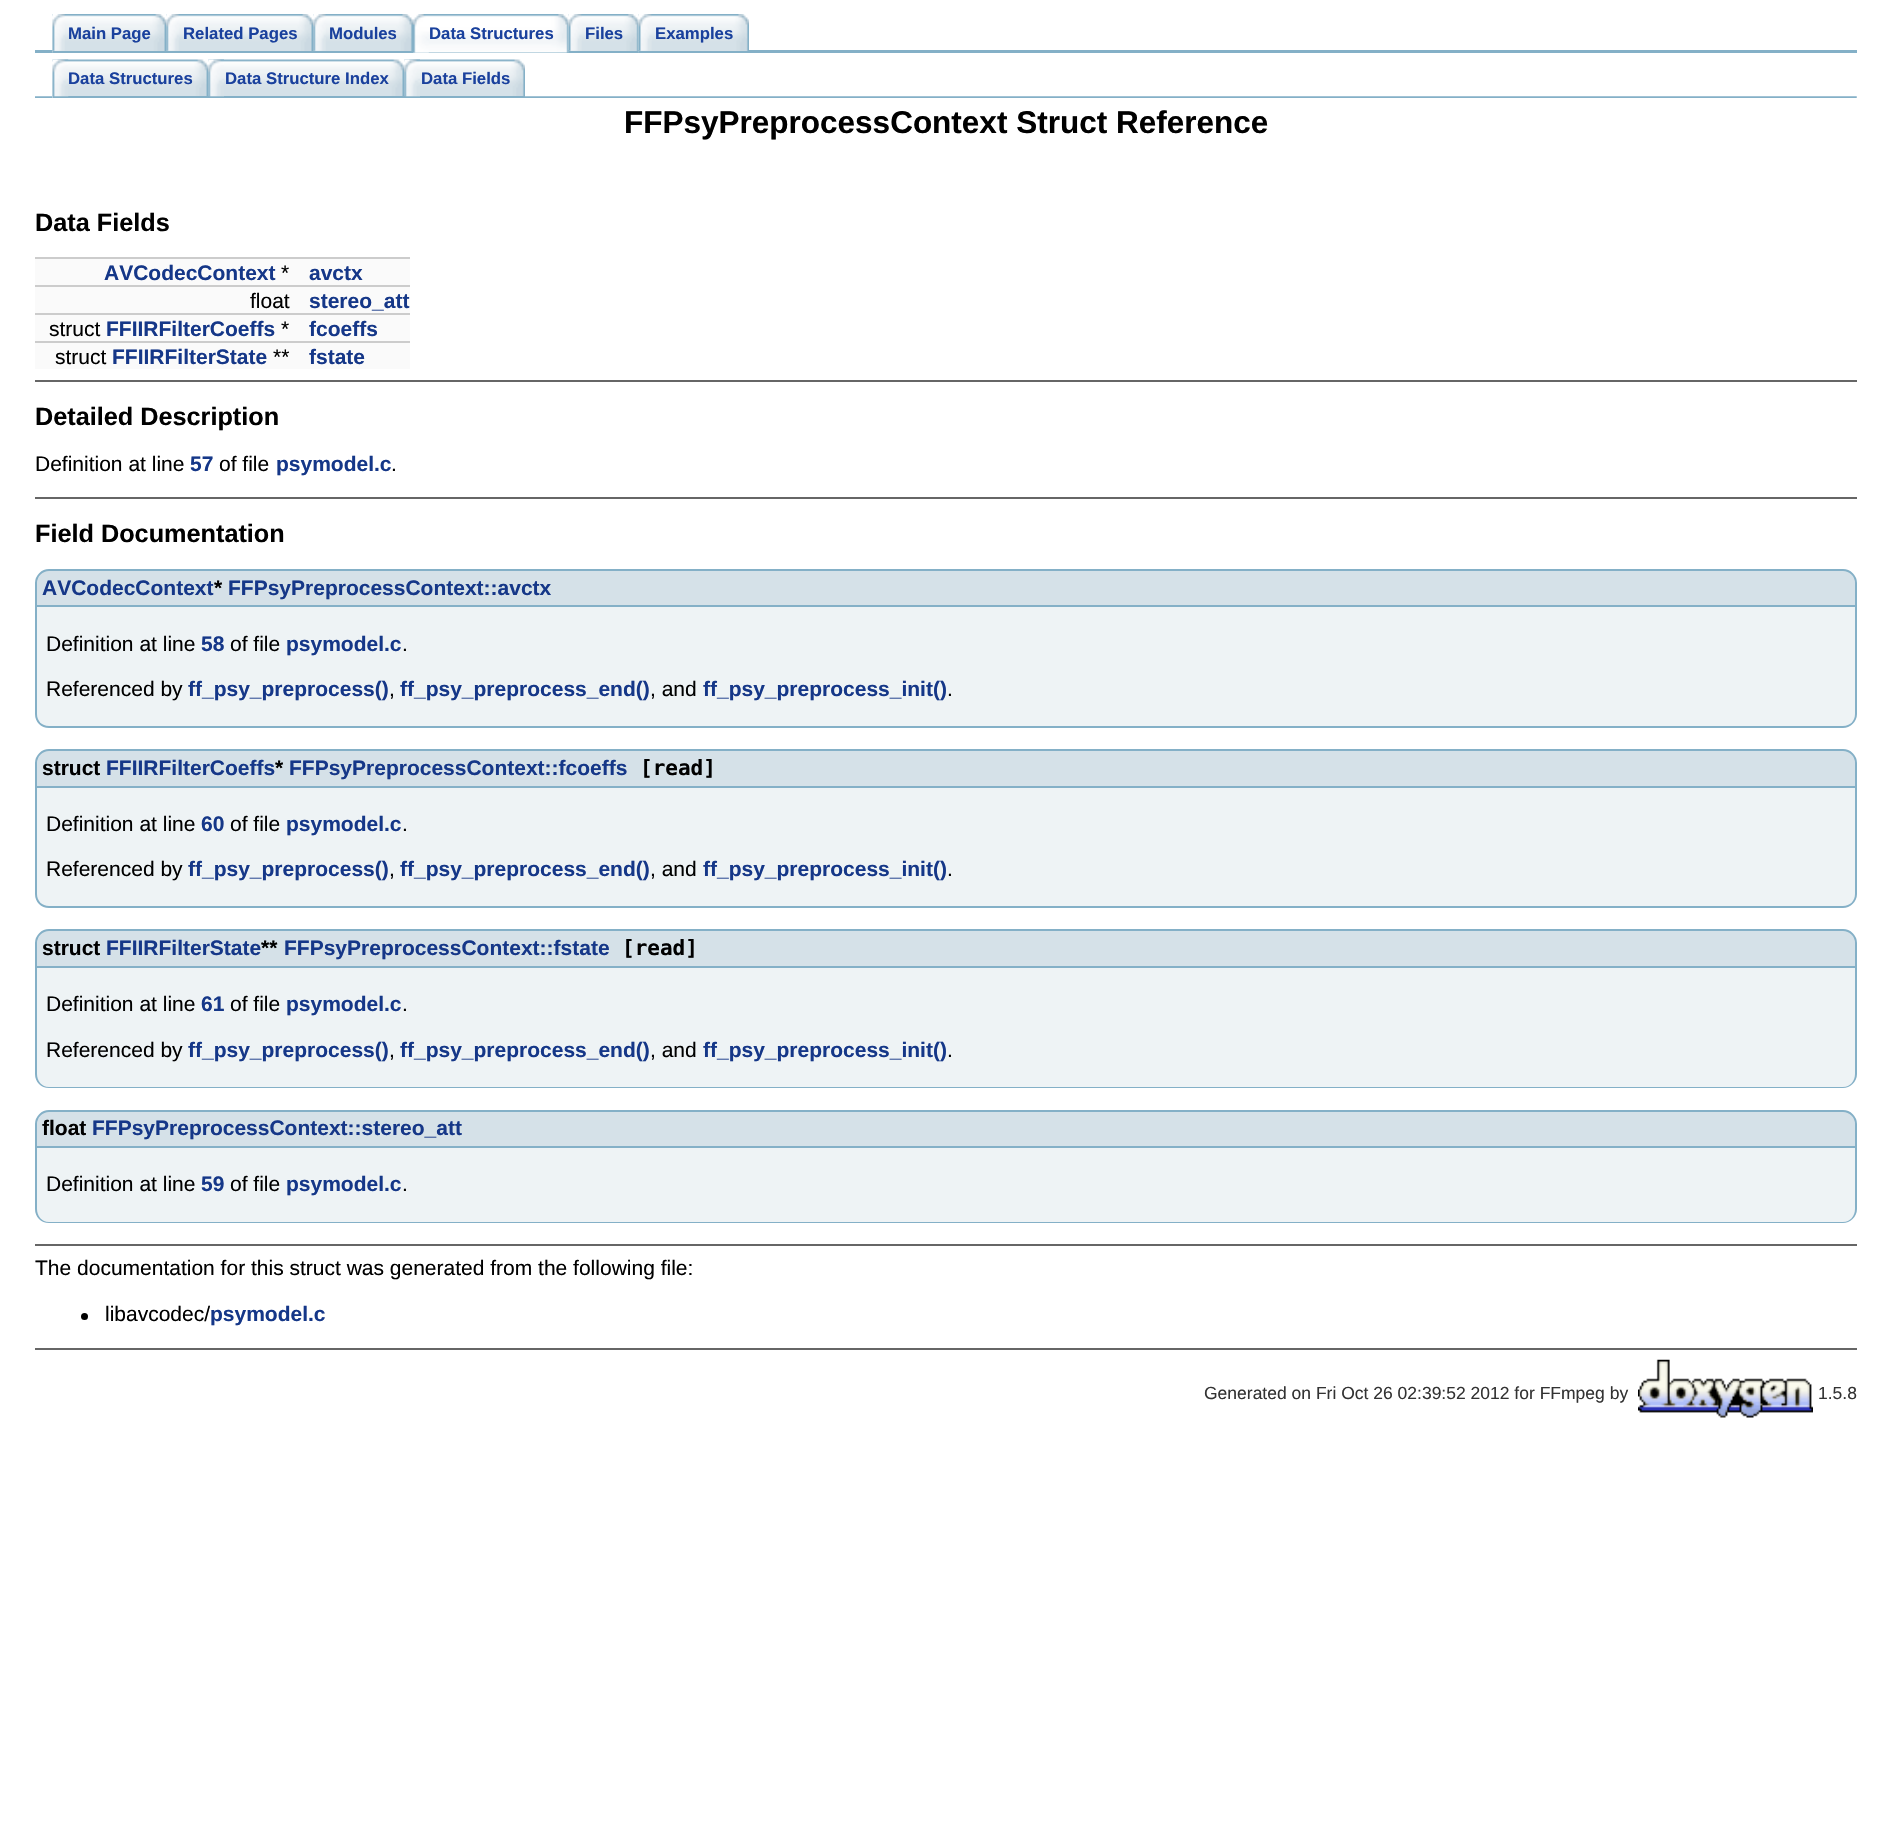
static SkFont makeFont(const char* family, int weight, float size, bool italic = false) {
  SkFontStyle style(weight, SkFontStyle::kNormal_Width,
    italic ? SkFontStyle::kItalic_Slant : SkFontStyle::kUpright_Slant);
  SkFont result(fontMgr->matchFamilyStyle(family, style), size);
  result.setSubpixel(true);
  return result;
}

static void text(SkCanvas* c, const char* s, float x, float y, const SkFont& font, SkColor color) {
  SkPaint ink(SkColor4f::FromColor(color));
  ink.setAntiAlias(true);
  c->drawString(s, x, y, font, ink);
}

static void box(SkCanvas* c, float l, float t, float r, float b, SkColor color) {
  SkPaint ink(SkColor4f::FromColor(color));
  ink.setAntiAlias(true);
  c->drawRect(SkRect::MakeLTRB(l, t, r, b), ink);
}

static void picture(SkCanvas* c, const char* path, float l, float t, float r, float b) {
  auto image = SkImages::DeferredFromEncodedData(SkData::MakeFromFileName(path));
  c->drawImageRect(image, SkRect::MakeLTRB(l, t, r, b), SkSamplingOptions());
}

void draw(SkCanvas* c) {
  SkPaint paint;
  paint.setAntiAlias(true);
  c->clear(0xffffffff);
  box(c, 35, 50, 1857, 53, 0xff84b0c7);
  picture(c, "img_01.png", 52, 14, 167, 53);
  box(c, 53, 51, 166, 53, 0xff84b0c7);
  picture(c, "img_02.png", 52, 14, 65, 51);
  SkFont face1 = makeFont("Liberation Sans", 700, 16.75f);
  text(c, "Main Page", 68, 39, face1, 0xff1a419d);
  picture(c, "img_03.png", 166, 14, 314, 51);
  picture(c, "img_04.png", 166, 14, 179, 51);
  text(c, "Related Pages", 183, 39, face1, 0xff1a419d);
  picture(c, "img_05.png", 313, 14, 413, 51);
  picture(c, "img_06.png", 313, 14, 326, 51);
  text(c, "Modules", 329, 39, face1, 0xff1a419d);
  picture(c, "img_07.png", 413, 14, 569, 53);
  picture(c, "img_08.png", 413, 14, 429, 53);
  text(c, "Data Structures", 429, 39, face1, 0xff1a419d);
  picture(c, "img_09.png", 568, 14, 639, 53);
  box(c, 569, 51, 639, 53, 0xff84b0c7);
  picture(c, "img_10.png", 568, 14, 582, 51);
  text(c, "Files", 585, 39, face1, 0xff1a419d);
  picture(c, "img_11.png", 638, 14, 749, 53);
  box(c, 639, 51, 749, 53, 0xff84b0c7);
  picture(c, "img_10.png", 638, 14, 652, 51);
  text(c, "Examples", 655, 39, face1, 0xff1a419d);
  picture(c, "img_12.png", 35, 96, 1857, 98);
  picture(c, "img_13.png", 52, 59, 209, 98);
  box(c, 53, 96, 208, 98, 0xff84b0c7);
  picture(c, "img_14.png", 52, 59, 69, 97);
  text(c, "Data Structures", 68, 84, face1, 0xff1a419d);
  picture(c, "img_15.png", 208, 59, 405, 96);
  box(c, 208, 96, 525, 97, 0xff84b0c7);
  picture(c, "img_16.png", 208, 59, 224, 97);
  text(c, "Data Structure Index", 225, 84, face1, 0xff1a419d);
  picture(c, "img_17.png", 404, 59, 525, 96);
  picture(c, "img_16.png", 404, 59, 420, 97);
  text(c, "Data Fields", 421, 84, face1, 0xff1a419d);
  SkFont face2 = makeFont("Liberation Sans", 700, 31.5f);
  text(c, "FFPsyPreprocessContext Struct Reference", 624, 133, face2, 0xff000000);
  SkFont face3 = makeFont("Liberation Sans", 700, 25.25f);
  text(c, "Data Fields", 35, 231, face3, 0xff000000);
  box(c, 35, 259, 410, 285, 0xfffafafa);
  box(c, 35, 257, 410, 259, 0xffcccccc);
  SkFont face4 = makeFont("Liberation Sans", 700, 21);
  text(c, "AVCodecContext", 104, 280, face4, 0xff153788);
  SkFont face5 = makeFont("Liberation Sans", 400, 21);
  text(c, "*", 281, 280, face5, 0xff000000);
  text(c, "avctx", 309, 280, face4, 0xff153788);
  box(c, 35, 287, 410, 313, 0xfffafafa);
  box(c, 35, 285, 410, 287, 0xffcccccc);
  text(c, "float", 250, 308, face5, 0xff000000);
  text(c, "stereo_att", 309, 308, face4, 0xff153788);
  box(c, 35, 315, 410, 341, 0xfffafafa);
  box(c, 35, 313, 410, 315, 0xffcccccc);
  text(c, "struct", 49, 336, face5, 0xff000000);
  text(c, "FFIIRFilterCoeffs", 106, 336, face4, 0xff153788);
  text(c, "*", 281, 336, face5, 0xff000000);
  text(c, "fcoeffs", 309, 336, face4, 0xff153788);
  box(c, 35, 343, 410, 369, 0xfffafafa);
  box(c, 35, 341, 410, 343, 0xffcccccc);
  text(c, "struct", 55, 364, face5, 0xff000000);
  text(c, "FFIIRFilterState", 112, 364, face4, 0xff153788);
  text(c, "**", 273, 364, face5, 0xff000000);
  text(c, "fstate", 309, 364, face4, 0xff153788);
  box(c, 35, 380, 1857, 382, 0xff666666);
  text(c, "Detailed Description", 35, 425, face3, 0xff000000);
  text(c, "Definition at line", 35, 471, face5, 0xff000000);
  text(c, "57", 190, 471, face4, 0xff153788);
  text(c, "of file", 219, 471, face5, 0xff000000);
  text(c, "psymodel.c", 276, 471, face4, 0xff153788);
  text(c, ".", 391, 471, face5, 0xff000000);
  box(c, 35, 497, 1857, 499, 0xff666666);
  text(c, "Field Documentation", 35, 542, face3, 0xff000000);
  paint.setColor(0xffd5e1e8);
  c->drawPath(SkPathBuilder().moveTo(49, 570).lineTo(1843, 570).cubicTo(1850, 570, 1856, 576, 1856, 583).lineTo(1856, 606).lineTo(36, 606).lineTo(36, 583).cubicTo(36, 576, 42, 570, 49, 570).close().detach(), paint);
  paint.setStyle(SkPaint::kStroke_Style);
  paint.setStrokeWidth(2);
  paint.setColor(0xff84b0c7);
  c->drawPath(SkPathBuilder().moveTo(49, 570).lineTo(1843, 570).cubicTo(1850, 570, 1856, 576, 1856, 583).lineTo(1856, 606).lineTo(36, 606).lineTo(36, 583).cubicTo(36, 576, 42, 570, 49, 570).close().detach(), paint);
  text(c, "AVCodecContext", 42, 595, face4, 0xff153788);
  text(c, "*", 214, 595, face4, 0xff000000);
  text(c, "FFPsyPreprocessContext::avctx", 228, 595, face4, 0xff153788);
  paint.setStyle(SkPaint::kFill_Style);
  paint.setColor(0xffeef3f5);
  c->drawPath(SkPathBuilder().moveTo(37, 607).lineTo(1855, 607).lineTo(1855, 714).cubicTo(1855, 720.5f, 1849.5f, 726, 1843, 726).lineTo(49, 726).cubicTo(42.5f, 726, 37, 720.5f, 37, 714).close().detach(), paint);
  paint.setColor(0xff84b0c7);
  c->drawPath(SkPathBuilder(SkPathFillType::kEvenOdd).moveTo(35, 607).lineTo(1857, 607).lineTo(1857, 714).cubicTo(1857, 722, 1850, 728, 1843, 728).lineTo(49, 728).cubicTo(41, 728, 35, 722, 35, 714).close().moveTo(37, 607).lineTo(1855, 607).lineTo(1855, 714).cubicTo(1855, 721, 1850, 726, 1843, 726).lineTo(49, 726).cubicTo(42, 726, 37, 721, 37, 714).close().detach(), paint);
  text(c, "Definition at line", 46, 651, face5, 0xff000000);
  text(c, "58", 201, 651, face4, 0xff153788);
  text(c, "of file", 230, 651, face5, 0xff000000);
  text(c, "psymodel.c", 286, 651, face4, 0xff153788);
  text(c, ".", 402, 651, face5, 0xff000000);
  text(c, "Referenced by", 46, 696, face5, 0xff000000);
  text(c, "ff_psy_preprocess()", 188, 696, face4, 0xff153788);
  text(c, ",", 389, 696, face5, 0xff000000);
  text(c, "ff_psy_preprocess_end()", 400, 696, face4, 0xff153788);
  text(c, ", and", 650, 696, face5, 0xff000000);
  text(c, "ff_psy_preprocess_init()", 703, 696, face4, 0xff153788);
  text(c, ".", 947, 696, face5, 0xff000000);
  paint.setColor(0xffd5e1e8);
  c->drawPath(SkPathBuilder().moveTo(49, 750).lineTo(1843, 750).cubicTo(1850, 750, 1856, 756, 1856, 763).lineTo(1856, 787).lineTo(36, 787).lineTo(36, 763).cubicTo(36, 756, 42, 750, 49, 750).close().detach(), paint);
  paint.setStyle(SkPaint::kStroke_Style);
  paint.setColor(0xff84b0c7);
  c->drawPath(SkPathBuilder().moveTo(49, 750).lineTo(1843, 750).cubicTo(1850, 750, 1856, 756, 1856, 763).lineTo(1856, 787).lineTo(36, 787).lineTo(36, 763).cubicTo(36, 756, 42, 750, 49, 750).close().detach(), paint);
  text(c, "struct", 42, 775, face4, 0xff000000);
  text(c, "FFIIRFilterCoeffs", 106, 775, face4, 0xff153788);
  text(c, "*", 275, 775, face4, 0xff000000);
  text(c, "FFPsyPreprocessContext::fcoeffs", 289, 775, face4, 0xff153788);
  SkFont face6 = makeFont("DejaVu Sans Mono", 700, 21);
  text(c, "[read]", 640, 775, face6, 0xff000000);
  paint.setStyle(SkPaint::kFill_Style);
  paint.setColor(0xffeef3f5);
  c->drawPath(SkPathBuilder().moveTo(37, 788).lineTo(1855, 788).lineTo(1855, 895).cubicTo(1855, 901.5f, 1849.5f, 907, 1843, 907).lineTo(49, 907).cubicTo(42.5f, 907, 37, 901.5f, 37, 895).close().detach(), paint);
  paint.setColor(0xff84b0c7);
  c->drawPath(SkPathBuilder(SkPathFillType::kEvenOdd).moveTo(35, 788).lineTo(1857, 788).lineTo(1857, 894).cubicTo(1857, 902, 1850, 908, 1843, 908).lineTo(49, 908).cubicTo(41, 908, 35, 902, 35, 894).close().moveTo(37, 788).lineTo(1855, 788).lineTo(1855, 894).cubicTo(1855, 901, 1850, 906, 1843, 906).lineTo(49, 906).cubicTo(42, 906, 37, 901, 37, 894).close().detach(), paint);
  text(c, "Definition at line", 46, 831, face5, 0xff000000);
  text(c, "60", 201, 831, face4, 0xff153788);
  text(c, "of file", 230, 831, face5, 0xff000000);
  text(c, "psymodel.c", 286, 831, face4, 0xff153788);
  text(c, ".", 402, 831, face5, 0xff000000);
  text(c, "Referenced by", 46, 876, face5, 0xff000000);
  text(c, "ff_psy_preprocess()", 188, 876, face4, 0xff153788);
  text(c, ",", 389, 876, face5, 0xff000000);
  text(c, "ff_psy_preprocess_end()", 400, 876, face4, 0xff153788);
  text(c, ", and", 650, 876, face5, 0xff000000);
  text(c, "ff_psy_preprocess_init()", 703, 876, face4, 0xff153788);
  text(c, ".", 947, 876, face5, 0xff000000);
  paint.setColor(0xffd5e1e8);
  c->drawPath(SkPathBuilder().moveTo(49, 930).lineTo(1843, 930).cubicTo(1850, 930, 1856, 936, 1856, 943).lineTo(1856, 967).lineTo(36, 967).lineTo(36, 943).cubicTo(36, 936, 42, 930, 49, 930).close().detach(), paint);
  paint.setStyle(SkPaint::kStroke_Style);
  paint.setColor(0xff84b0c7);
  c->drawPath(SkPathBuilder().moveTo(49, 930).lineTo(1843, 930).cubicTo(1850, 930, 1856, 936, 1856, 943).lineTo(1856, 967).lineTo(36, 967).lineTo(36, 943).cubicTo(36, 936, 42, 930, 49, 930).close().detach(), paint);
  text(c, "struct", 42, 955, face4, 0xff000000);
  text(c, "FFIIRFilterState", 106, 955, face4, 0xff153788);
  text(c, "**", 261, 955, face4, 0xff000000);
  text(c, "FFPsyPreprocessContext::fstate", 284, 955, face4, 0xff153788);
  text(c, "[read]", 622, 955, face6, 0xff000000);
  paint.setStyle(SkPaint::kFill_Style);
  paint.setColor(0xffeef3f5);
  c->drawPath(SkPathBuilder().moveTo(37, 968).lineTo(1855, 968).lineTo(1855, 1075).cubicTo(1855, 1081.5f, 1849.5f, 1087, 1843, 1087).lineTo(49, 1087).cubicTo(42.5f, 1087, 37, 1081.5f, 37, 1075).close().detach(), paint);
  paint.setColor(0xff84b0c7);
  c->drawPath(SkPathBuilder(SkPathFillType::kEvenOdd).moveTo(35, 968).lineTo(1857, 968).lineTo(1857, 1074).cubicTo(1857, 1082, 1850, 1088, 1843, 1088).lineTo(49, 1088).cubicTo(41, 1088, 35, 1082, 35, 1074).close().moveTo(37, 968).lineTo(1855, 968).lineTo(1855, 1074).cubicTo(1855, 1081, 1850, 1087, 1843, 1087).lineTo(49, 1087).cubicTo(42, 1087, 37, 1081, 37, 1074).close().detach(), paint);
  text(c, "Definition at line", 46, 1011, face5, 0xff000000);
  text(c, "61", 201, 1011, face4, 0xff153788);
  text(c, "of file", 230, 1011, face5, 0xff000000);
  text(c, "psymodel.c", 286, 1011, face4, 0xff153788);
  text(c, ".", 402, 1011, face5, 0xff000000);
  text(c, "Referenced by", 46, 1057, face5, 0xff000000);
  text(c, "ff_psy_preprocess()", 188, 1057, face4, 0xff153788);
  text(c, ",", 389, 1057, face5, 0xff000000);
  text(c, "ff_psy_preprocess_end()", 400, 1057, face4, 0xff153788);
  text(c, ", and", 650, 1057, face5, 0xff000000);
  text(c, "ff_psy_preprocess_init()", 703, 1057, face4, 0xff153788);
  text(c, ".", 947, 1057, face5, 0xff000000);
  paint.setColor(0xffd5e1e8);
  c->drawPath(SkPathBuilder().moveTo(49, 1111).lineTo(1843, 1111).cubicTo(1850, 1111, 1856, 1117, 1856, 1124).lineTo(1856, 1147).lineTo(36, 1147).lineTo(36, 1124).cubicTo(36, 1117, 42, 1111, 49, 1111).close().detach(), paint);
  paint.setStyle(SkPaint::kStroke_Style);
  paint.setColor(0xff84b0c7);
  c->drawPath(SkPathBuilder().moveTo(49, 1111).lineTo(1843, 1111).cubicTo(1850, 1111, 1856, 1117, 1856, 1124).lineTo(1856, 1147).lineTo(36, 1147).lineTo(36, 1124).cubicTo(36, 1117, 42, 1111, 49, 1111).close().detach(), paint);
  text(c, "float", 42, 1135, face4, 0xff000000);
  text(c, "FFPsyPreprocessContext::stereo_att", 92, 1135, face4, 0xff153788);
  paint.setStyle(SkPaint::kFill_Style);
  paint.setColor(0xffeef3f5);
  c->drawPath(SkPathBuilder().moveTo(37, 1148).lineTo(1855, 1148).lineTo(1855, 1210).cubicTo(1855, 1216.5f, 1849.5f, 1222, 1843, 1222).lineTo(49, 1222).cubicTo(42.5f, 1222, 37, 1216.5f, 37, 1210).close().detach(), paint);
  paint.setColor(0xff84b0c7);
  c->drawPath(SkPathBuilder(SkPathFillType::kEvenOdd).moveTo(35, 1148).lineTo(1857, 1148).lineTo(1857, 1209).cubicTo(1857, 1217, 1850, 1223, 1843, 1223).lineTo(49, 1223).cubicTo(41, 1223, 35, 1217, 35, 1209).close().moveTo(37, 1148).lineTo(1855, 1148).lineTo(1855, 1209).cubicTo(1855, 1216, 1850, 1222, 1843, 1222).lineTo(49, 1222).cubicTo(42, 1222, 37, 1216, 37, 1209).close().detach(), paint);
  text(c, "Definition at line", 46, 1191, face5, 0xff000000);
  text(c, "59", 201, 1191, face4, 0xff153788);
  text(c, "of file", 230, 1191, face5, 0xff000000);
  text(c, "psymodel.c", 286, 1191, face4, 0xff153788);
  text(c, ".", 402, 1191, face5, 0xff000000);
  box(c, 35, 1244, 1857, 1246, 0xff666666);
  text(c, "The documentation for this struct was generated from the following file:", 35, 1275, face5, 0xff000000);
  paint.setColor(0xff000000);
  c->drawCircle(84.5f, 1316.5f, 3.5f, paint);
  text(c, "libavcodec/", 105, 1321, face5, 0xff000000);
  text(c, "psymodel.c", 210, 1321, face4, 0xff153788);
  box(c, 35, 1348, 1857, 1350, 0xff666666);
  SkFont face7 = makeFont("Liberation Sans", 400, 17.5f);
  text(c, "Generated on Fri Oct 26 02:39:52 2012 for FFmpeg by", 1204, 1399, face7, 0xff333333);
  picture(c, "img_18.png", 1638, 1359, 1813, 1418);
  text(c, "1.5.8", 1818, 1399, face7, 0xff333333);
}
